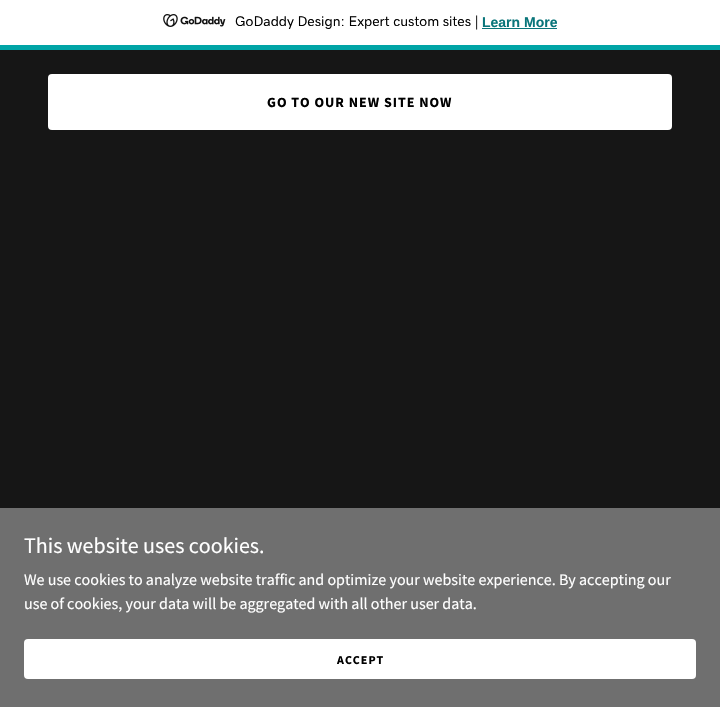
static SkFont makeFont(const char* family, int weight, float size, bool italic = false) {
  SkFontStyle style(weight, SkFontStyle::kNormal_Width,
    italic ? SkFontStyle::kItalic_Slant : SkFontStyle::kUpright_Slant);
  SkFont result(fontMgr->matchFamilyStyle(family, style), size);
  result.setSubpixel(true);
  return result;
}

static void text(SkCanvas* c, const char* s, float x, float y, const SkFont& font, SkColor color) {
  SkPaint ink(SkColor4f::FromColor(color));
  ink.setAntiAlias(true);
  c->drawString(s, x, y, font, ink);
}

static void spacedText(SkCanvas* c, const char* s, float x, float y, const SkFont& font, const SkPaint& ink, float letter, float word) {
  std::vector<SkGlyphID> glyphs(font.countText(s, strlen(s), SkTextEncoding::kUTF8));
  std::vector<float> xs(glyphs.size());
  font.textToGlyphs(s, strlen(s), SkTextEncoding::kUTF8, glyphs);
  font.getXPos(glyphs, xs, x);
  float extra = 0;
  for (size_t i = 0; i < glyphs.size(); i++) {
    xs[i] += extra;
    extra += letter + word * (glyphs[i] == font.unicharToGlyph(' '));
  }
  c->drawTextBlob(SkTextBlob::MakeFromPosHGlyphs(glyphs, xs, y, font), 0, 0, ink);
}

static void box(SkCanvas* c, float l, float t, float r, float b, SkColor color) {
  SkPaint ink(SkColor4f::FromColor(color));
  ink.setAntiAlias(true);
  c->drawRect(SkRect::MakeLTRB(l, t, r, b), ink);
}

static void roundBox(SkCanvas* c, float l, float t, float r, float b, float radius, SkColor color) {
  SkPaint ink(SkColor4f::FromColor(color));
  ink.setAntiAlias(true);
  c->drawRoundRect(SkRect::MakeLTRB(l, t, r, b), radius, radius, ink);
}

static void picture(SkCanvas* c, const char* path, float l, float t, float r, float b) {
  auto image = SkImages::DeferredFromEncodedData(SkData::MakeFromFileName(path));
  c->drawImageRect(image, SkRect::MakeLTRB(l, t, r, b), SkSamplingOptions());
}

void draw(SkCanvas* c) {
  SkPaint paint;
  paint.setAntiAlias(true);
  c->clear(0xff161616);
  box(c, 0, 0, 720, 45, 0xffffffff);
  box(c, 0, 45, 720, 50, 0xff00a4a6);
  picture(c, "img_01.png", 163, 14, 226, 27);
  SkFont face1 = makeFont("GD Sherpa", 500, 14);
  text(c, "GoDaddy Design: Expert custom sites |", 235, 26, face1, 0xff000000);
  SkFont face2 = makeFont("Liberation Sans", 700, 14);
  text(c, "Learn More", 482, 27, face2, 0xff09757a);
  box(c, 482, 28, 557, 29, 0xff09757a);
  roundBox(c, 48, 74, 672, 130, 4, 0xffffffff);
  SkFont face3 = makeFont("Source Sans Pro", 700, 14);
  paint.setColor(0xff000000);
  spacedText(c, "GO TO OUR NEW SITE NOW", 267, 107, face3, paint, 1, 0);
  box(c, 0, 508, 720, 707, 0xff6f6f6f);
  SkFont face4 = makeFont("Source Sans Pro", 400, 22);
  text(c, "This website uses cookies.", 24, 553, face4, 0xffffffff);
  SkFont face5 = makeFont("Source Sans Pro", 400, 16);
  text(c, "We use cookies to analyze website traffic and optimize your website experience. By accepting our", 24, 585, face5, 0xffffffff);
  text(c, "use of cookies, your data will be aggregated with all other user data.", 24, 609, face5, 0xffffffff);
  roundBox(c, 24, 639, 696, 679, 4, 0xffffffff);
  SkFont face6 = makeFont("Source Sans Pro", 700, 12);
  spacedText(c, "ACCEPT", 337, 664, face6, paint, 1, 0);
}
